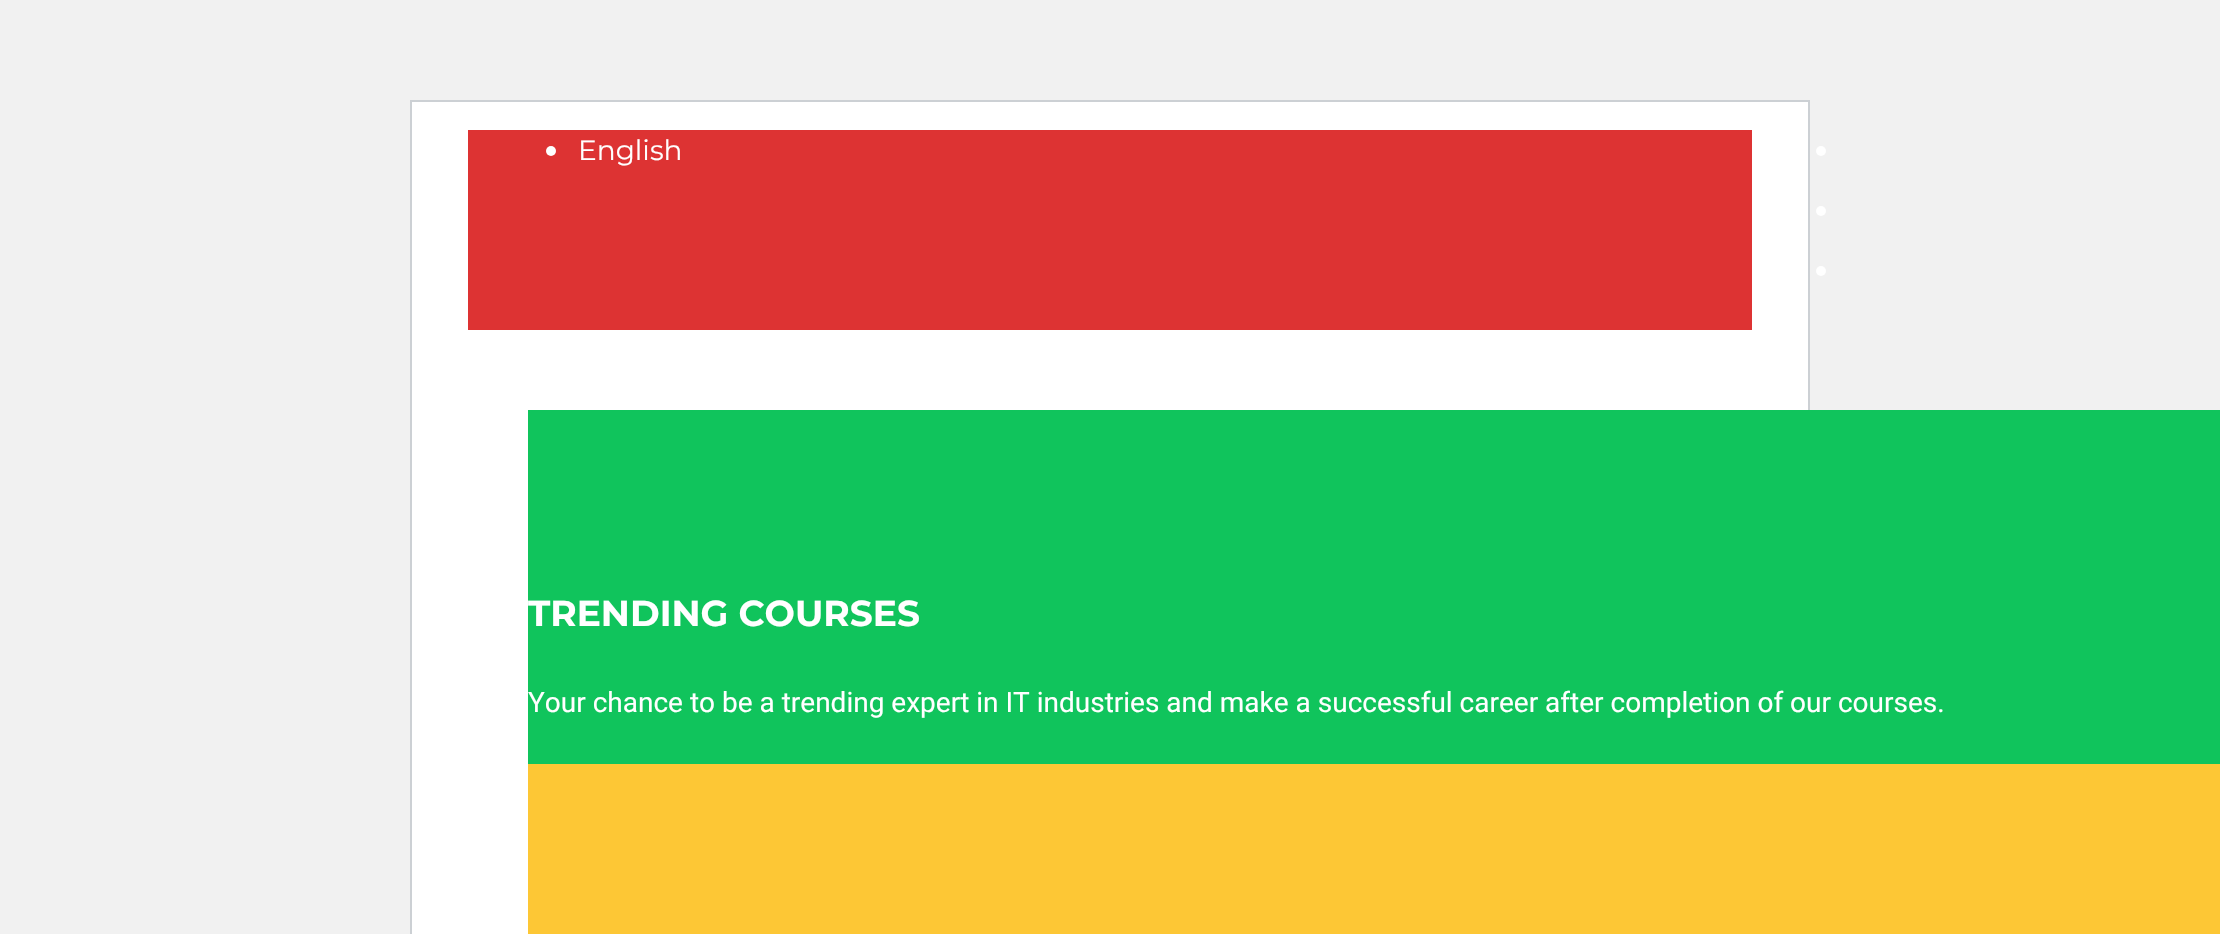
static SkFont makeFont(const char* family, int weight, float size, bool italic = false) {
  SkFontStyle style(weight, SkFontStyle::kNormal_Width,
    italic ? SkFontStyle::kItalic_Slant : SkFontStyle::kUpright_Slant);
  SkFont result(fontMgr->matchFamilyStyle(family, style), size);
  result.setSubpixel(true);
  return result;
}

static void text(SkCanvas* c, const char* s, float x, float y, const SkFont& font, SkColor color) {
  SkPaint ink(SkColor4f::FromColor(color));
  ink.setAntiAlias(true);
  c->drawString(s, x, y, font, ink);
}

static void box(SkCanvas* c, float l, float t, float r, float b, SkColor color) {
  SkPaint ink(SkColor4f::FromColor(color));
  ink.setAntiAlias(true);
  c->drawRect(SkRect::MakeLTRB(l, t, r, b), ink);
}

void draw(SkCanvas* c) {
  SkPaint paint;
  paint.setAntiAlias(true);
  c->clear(0xfff1f1f1);
  paint.setColor(0xffffffff);
  c->drawRect(SkRect::MakeLTRB(411, 101, 1809, 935), paint);
  paint.setStyle(SkPaint::kStroke_Style);
  paint.setStrokeWidth(2);
  paint.setColor(0xffccd0d4);
  c->drawRect(SkRect::MakeLTRB(411, 101, 1809, 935), paint);
  box(c, 468, 130, 1752, 330, 0xffdd3333);
  paint.setStyle(SkPaint::kFill_Style);
  paint.setColor(0xffffffff);
  c->drawCircle(551, 151, 5, paint);
  SkFont face1 = makeFont("Montserrat", 400, 28);
  text(c, "English", 578, 160, face1, 0xffffffff);
  c->drawCircle(1821, 151, 5, paint);
  c->drawCircle(1821, 211, 5, paint);
  c->drawCircle(1821, 271, 5, paint);
  box(c, 528, 410, 2220, 764, 0xff10c45c);
  SkFont face2 = makeFont("Montserrat", 700, 36);
  text(c, "TRENDING COURSES", 528, 626, face2, 0xffffffff);
  SkFont face3 = makeFont("Roboto", 400, 28);
  text(c, "Your chance to be a trending expert in IT industries and make a successful career after completion of our courses.", 528, 712, face3, 0xffffffff);
  box(c, 528, 764, 2220, 934, 0xfffdc735);
}
